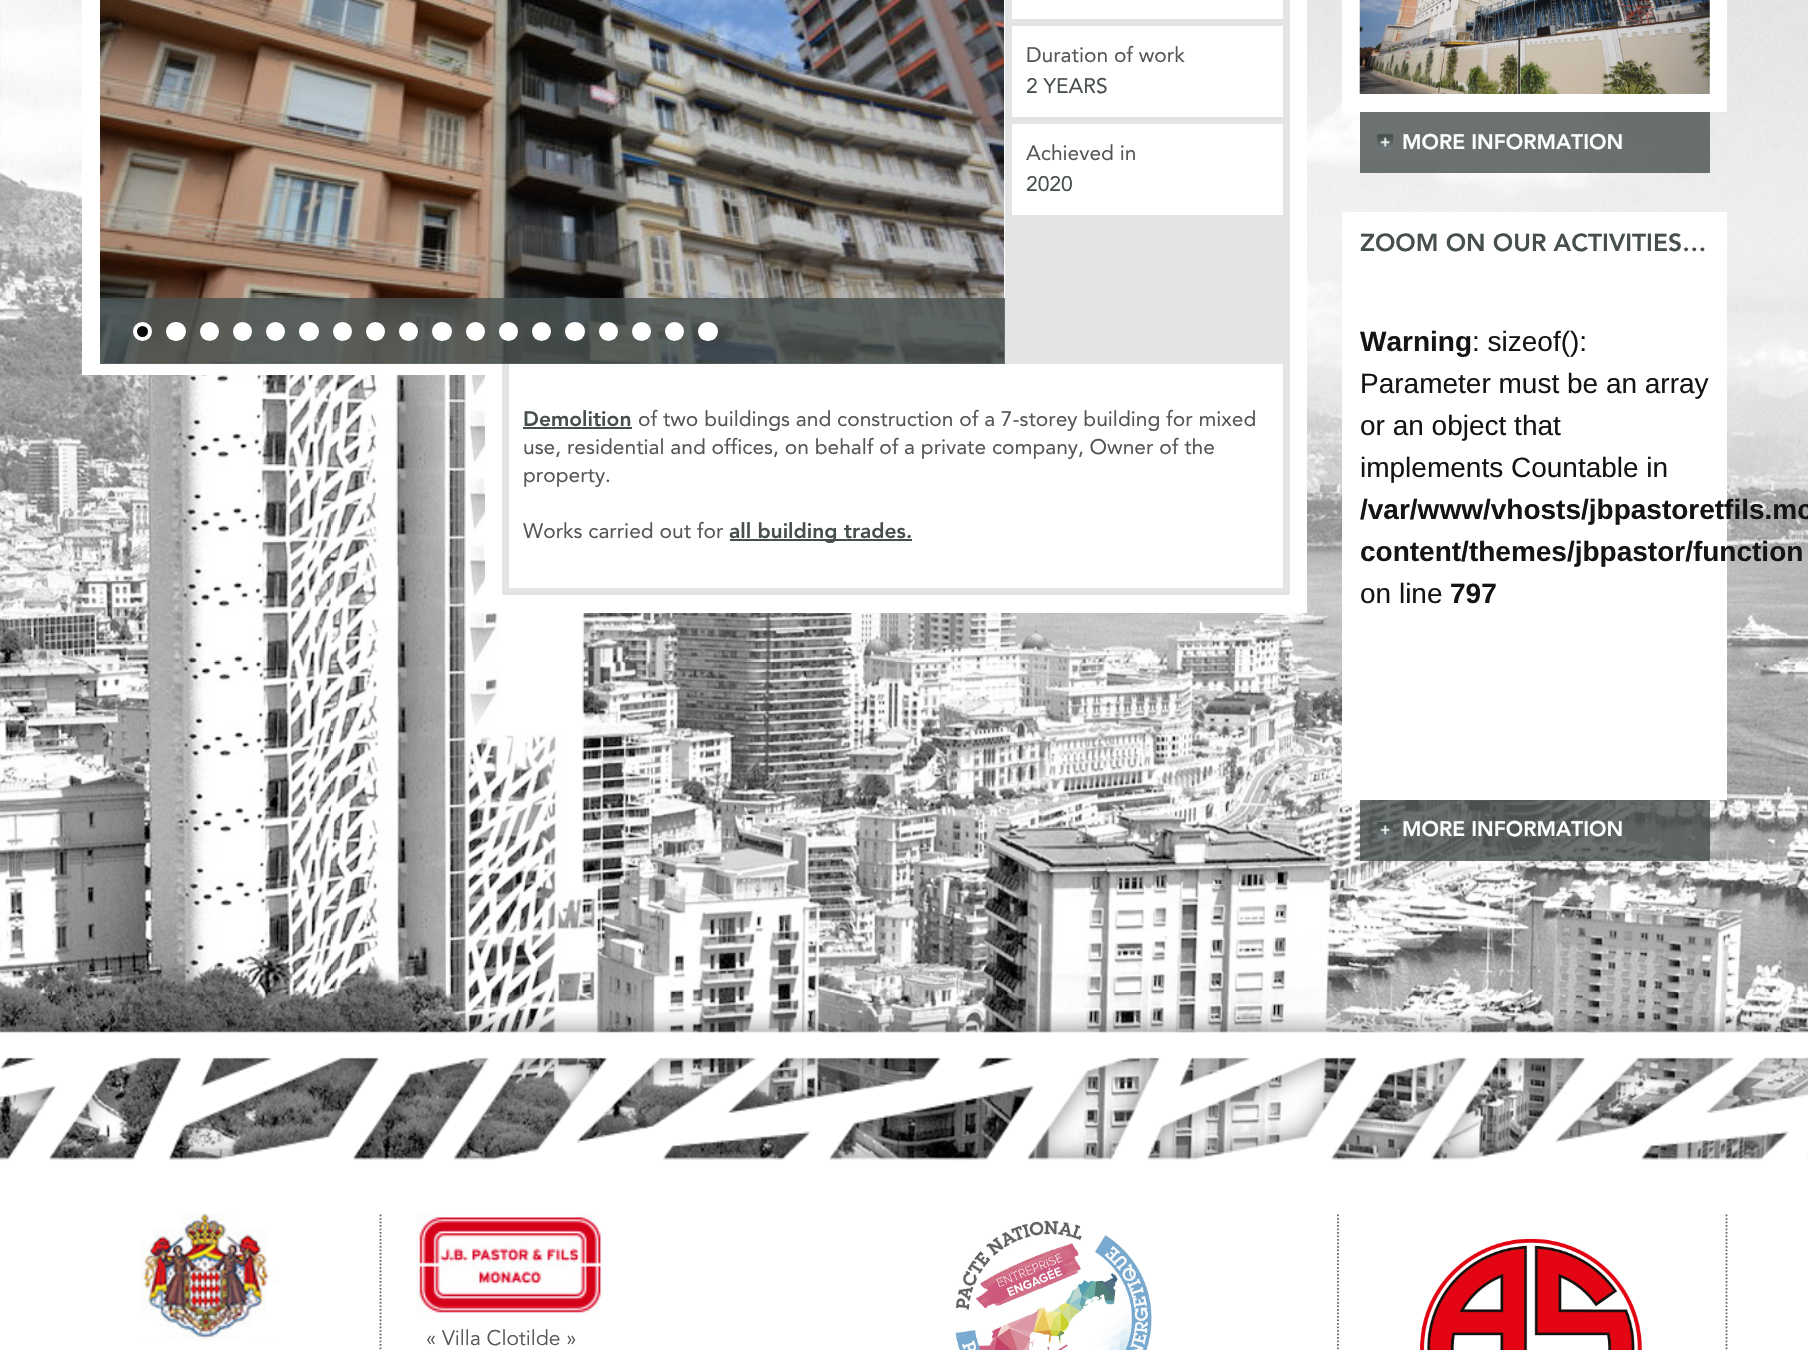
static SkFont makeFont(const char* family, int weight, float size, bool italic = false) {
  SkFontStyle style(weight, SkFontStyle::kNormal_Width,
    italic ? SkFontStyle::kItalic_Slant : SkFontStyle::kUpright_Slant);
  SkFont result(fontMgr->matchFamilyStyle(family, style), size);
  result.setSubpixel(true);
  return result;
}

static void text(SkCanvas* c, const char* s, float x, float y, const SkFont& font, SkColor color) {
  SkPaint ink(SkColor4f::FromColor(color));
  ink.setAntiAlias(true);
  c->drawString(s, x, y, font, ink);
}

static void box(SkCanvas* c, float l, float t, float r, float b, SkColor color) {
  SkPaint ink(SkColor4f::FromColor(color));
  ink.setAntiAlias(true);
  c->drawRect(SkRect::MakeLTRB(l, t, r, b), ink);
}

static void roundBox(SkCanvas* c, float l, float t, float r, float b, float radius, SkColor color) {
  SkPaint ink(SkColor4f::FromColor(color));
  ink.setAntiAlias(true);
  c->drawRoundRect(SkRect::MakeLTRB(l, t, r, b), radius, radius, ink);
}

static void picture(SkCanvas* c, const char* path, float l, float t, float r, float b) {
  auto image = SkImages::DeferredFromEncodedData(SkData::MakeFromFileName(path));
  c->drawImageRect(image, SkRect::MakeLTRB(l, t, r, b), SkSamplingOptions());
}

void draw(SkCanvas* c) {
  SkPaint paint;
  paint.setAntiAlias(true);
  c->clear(0xffffffff);
  picture(c, "img_01.png", 0, 0, 1808, 1161);
  box(c, 82, 0, 1307, 375, 0xffffffff);
  box(c, 485, 375, 1307, 613, 0xffffffff);
  paint.setStyle(SkPaint::kStroke_Style);
  paint.setStrokeWidth(7);
  paint.setColor(0xffe3e5e5);
  c->drawRect(SkRect::MakeLTRB(505.5f, 360.5f, 1286.5f, 591.5f), paint);
  picture(c, "img_02.png", 100, 0, 1004, 364);
  box(c, 100, 298, 1005, 364, 0xcc464f4e);
  paint.setStyle(SkPaint::kFill_Style);
  paint.setColor(0xe6000000);
  c->drawCircle(142.5f, 331.5f, 7.5f, paint);
  paint.setStyle(SkPaint::kStroke_Style);
  paint.setStrokeWidth(4);
  paint.setColor(0xffffffff);
  c->drawCircle(142.5f, 331.5f, 7.5f, paint);
  roundBox(c, 166, 322, 186, 341, 9.5f, 0xffffffff);
  paint.setStyle(SkPaint::kFill_Style);
  c->drawCircle(209.5f, 331.5f, 9.5f, paint);
  c->drawCircle(242.5f, 331.5f, 9.5f, paint);
  c->drawCircle(275.5f, 331.5f, 9.5f, paint);
  roundBox(c, 299, 322, 319, 341, 9.5f, 0xffffffff);
  c->drawCircle(342.5f, 331.5f, 9.5f, paint);
  c->drawCircle(375.5f, 331.5f, 9.5f, paint);
  c->drawCircle(408.5f, 331.5f, 9.5f, paint);
  roundBox(c, 432, 322, 452, 341, 9.5f, 0xffffffff);
  c->drawCircle(475.5f, 331.5f, 9.5f, paint);
  c->drawCircle(508.5f, 331.5f, 9.5f, paint);
  c->drawCircle(541.5f, 331.5f, 9.5f, paint);
  roundBox(c, 565, 322, 585, 341, 9.5f, 0xffffffff);
  c->drawCircle(608.5f, 331.5f, 9.5f, paint);
  c->drawCircle(641.5f, 331.5f, 9.5f, paint);
  c->drawCircle(674.5f, 331.5f, 9.5f, paint);
  roundBox(c, 698, 322, 718, 341, 9.5f, 0xffffffff);
  box(c, 1005, 0, 1290, 357, 0xffe3e5e5);
  box(c, 1012, 0, 1283, 19, 0xffffffff);
  box(c, 1012, 26, 1283, 117, 0xffffffff);
  SkFont face1 = makeFont("Avenir", 400, 21);
  text(c, "Duration of work", 1026, 62, face1, 0xff555656);
  text(c, "2 YEARS", 1026, 93, face1, 0xff464f4e);
  box(c, 1012, 124, 1283, 215, 0xffffffff);
  text(c, "Achieved in", 1026, 160, face1, 0xff555656);
  text(c, "2020", 1026, 191, face1, 0xff464f4e);
  SkFont face2 = makeFont("Avenir", 900, 21);
  text(c, "Demolition", 523, 426, face2, 0xff464f4e);
  box(c, 523, 427, 632, 429, 0xff464f4e);
  text(c, "of two buildings and construction of a 7-storey building for mixed", 638, 426, face1, 0xff555656);
  text(c, "use, residential and offices, on behalf of a private company, Owner of the", 523, 454, face1, 0xff555656);
  text(c, "property.", 523, 482, face1, 0xff555656);
  text(c, "Works carried out for", 523, 538, face1, 0xff555656);
  box(c, 730, 539, 912, 541, 0xff464f4e);
  text(c, "all building trades.", 729, 538, face2, 0xff464f4e);
  box(c, 1342, 0, 1727, 112, 0xffffffff);
  picture(c, "img_03.png", 1359, 0, 1710, 94);
  box(c, 1360, 112, 1710, 173, 0xcc464f4e);
  picture(c, "img_04.png", 1377, 134, 1393, 150);
  text(c, "MORE INFORMATION", 1402, 149, face2, 0xffffffff);
  box(c, 1342, 212, 1727, 800, 0xffffffff);
  SkFont face3 = makeFont("Avenir", 900, 24.5f);
  text(c, "ZOOM ON OUR ACTIVITIES…", 1360, 251, face3, 0xff464f4e);
  SkFont face4 = makeFont("Liberation Sans", 700, 28);
  text(c, "Warning", 1360, 351, face4, 0xff141412);
  SkFont face5 = makeFont("Liberation Sans", 400, 28);
  text(c, ": sizeof():", 1472, 351, face5, 0xff141412);
  text(c, "Parameter must be an array", 1360, 393, face5, 0xff141412);
  text(c, "or an object that", 1360, 435, face5, 0xff141412);
  text(c, "implements Countable in", 1360, 477, face5, 0xff141412);
  text(c, "/var/www/vhosts/jbpastoretfils.mc", 1360, 519, face4, 0xff141412);
  text(c, "content/themes/jbpastor/function", 1360, 561, face4, 0xff141412);
  text(c, "on line", 1360, 603, face5, 0xff141412);
  text(c, "797", 1450, 603, face4, 0xff141412);
  box(c, 1360, 800, 1710, 861, 0xcc464f4e);
  picture(c, "img_05.png", 1377, 822, 1393, 838);
  text(c, "MORE INFORMATION", 1402, 836, face2, 0xffffffff);
  picture(c, "img_06.png", 0, 1012, 1808, 1350);
  picture(c, "img_07.png", 140, 1214, 280, 1341);
  paint.setStyle(SkPaint::kStroke_Style);
  paint.setStrokeWidth(1.8f);
  paint.setColor(0xff666666);
  paint.setPathEffect(SkDashPathEffect::Make({{1.75f, 1.75f}}, 0));
  c->drawPath(SkPathBuilder().moveTo(380.5f, 1214.5f).lineTo(380.5f, 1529.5f).detach(), paint);
  paint.setPathEffect(nullptr);
  picture(c, "img_08.png", 416, 1214, 603, 1313);
  SkFont face6 = makeFont("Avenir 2", 400, 21);
  text(c, "« Villa Clotilde »", 426, 1345, face6, 0xff555656);
  picture(c, "img_09.png", 955, 1220, 1152, 1350);
  paint.setPathEffect(SkDashPathEffect::Make({{1.75f, 1.75f}}, 0));
  c->drawPath(SkPathBuilder().moveTo(1338, 1214.5f).lineTo(1338, 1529.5f).detach(), paint);
  paint.setPathEffect(nullptr);
  picture(c, "img_10.png", 1420, 1238, 1642, 1350);
  paint.setPathEffect(SkDashPathEffect::Make({{1.75f, 1.75f}}, 0));
  c->drawPath(SkPathBuilder().moveTo(1726.5f, 1214.5f).lineTo(1726.5f, 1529.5f).detach(), paint);
  paint.setPathEffect(nullptr);
}
